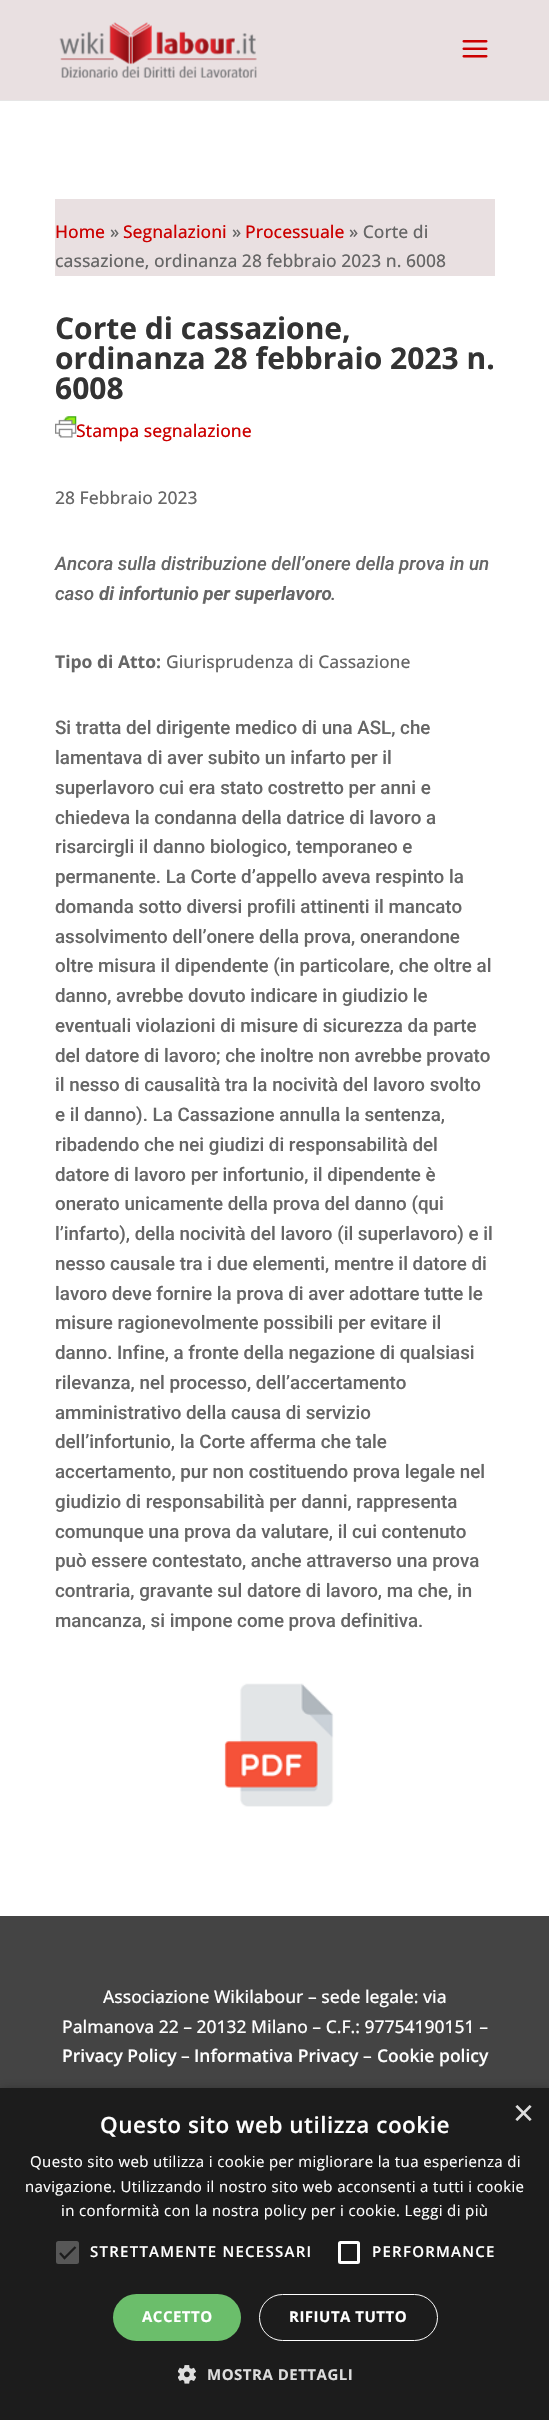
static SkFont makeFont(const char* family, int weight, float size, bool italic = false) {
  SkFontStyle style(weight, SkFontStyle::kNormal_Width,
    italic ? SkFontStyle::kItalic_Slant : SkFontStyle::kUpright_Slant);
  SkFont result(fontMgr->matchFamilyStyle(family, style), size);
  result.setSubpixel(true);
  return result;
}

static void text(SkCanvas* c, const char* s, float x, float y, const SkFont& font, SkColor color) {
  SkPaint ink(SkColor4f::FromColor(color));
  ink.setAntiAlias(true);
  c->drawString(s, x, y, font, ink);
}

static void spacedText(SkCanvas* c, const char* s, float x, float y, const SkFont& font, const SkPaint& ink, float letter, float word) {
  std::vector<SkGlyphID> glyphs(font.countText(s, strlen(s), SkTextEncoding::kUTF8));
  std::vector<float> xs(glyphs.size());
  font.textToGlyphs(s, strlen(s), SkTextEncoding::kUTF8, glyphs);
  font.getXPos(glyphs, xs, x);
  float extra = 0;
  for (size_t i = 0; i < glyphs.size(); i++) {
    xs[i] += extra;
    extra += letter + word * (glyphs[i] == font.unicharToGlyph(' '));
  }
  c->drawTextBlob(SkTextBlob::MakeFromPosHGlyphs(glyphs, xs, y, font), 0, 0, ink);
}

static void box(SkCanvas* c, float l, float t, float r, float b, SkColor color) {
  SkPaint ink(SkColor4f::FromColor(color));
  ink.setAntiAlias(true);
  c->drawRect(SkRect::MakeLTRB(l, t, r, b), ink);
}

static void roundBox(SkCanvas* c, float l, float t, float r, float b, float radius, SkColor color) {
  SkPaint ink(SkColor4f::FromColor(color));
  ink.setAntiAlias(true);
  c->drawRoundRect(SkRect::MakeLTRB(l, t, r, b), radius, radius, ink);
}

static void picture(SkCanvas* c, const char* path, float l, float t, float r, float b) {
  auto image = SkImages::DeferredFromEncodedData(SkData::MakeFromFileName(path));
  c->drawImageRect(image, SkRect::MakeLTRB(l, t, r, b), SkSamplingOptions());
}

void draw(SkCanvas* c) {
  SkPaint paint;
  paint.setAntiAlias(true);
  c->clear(0xffffffff);
  box(c, 0, 100, 549, 101, 0xffe6e6e6);
  box(c, 0, 0, 549, 100, 0xffe9e0e1);
  picture(c, "img_01.png", 59, 22, 257, 78);
  picture(c, "img_02.png", 462, 40, 488, 58);
  box(c, 55, 199, 495, 276, 0xffe9e0e1);
  SkFont face1 = makeFont("Open Sans", 500, 17.5f);
  text(c, "Home", 55, 238, face1, 0xffcc0000);
  text(c, "»", 110, 238, face1, 0xff666666);
  text(c, "Segnalazioni", 123, 238, face1, 0xffcc0000);
  text(c, "»", 232, 238, face1, 0xff666666);
  text(c, "Processuale", 245, 238, face1, 0xffcc0000);
  text(c, "» Corte di", 349, 238, face1, 0xff666666);
  text(c, "cassazione, ordinanza 28 febbraio 2023 n. 6008", 55, 267, face1, 0xff666666);
  SkFont face2 = makeFont("Open Sans", 700, 30);
  text(c, "Corte di cassazione,", 55, 339, face2, 0xff333333);
  text(c, "ordinanza 28 febbraio 2023 n.", 55, 369, face2, 0xff333333);
  text(c, "6008", 55, 399, face2, 0xff333333);
  picture(c, "img_03.png", 55, 416, 77, 438);
  text(c, "Stampa segnalazione", 76, 437, face1, 0xffcc0000);
  text(c, "28 Febbraio 2023", 55, 504, face1, 0xff666666);
  SkFont face3 = makeFont("Roboto", 500, 18.75f, true);
  text(c, "Ancora sulla distribuzione dell’onere della prova in un", 55, 570, face3, 0xff666666);
  text(c, "caso", 55, 600, face3, 0xff666666);
  SkFont face4 = makeFont("Roboto", 700, 18.75f, true);
  text(c, "di infortunio per superlavoro", 99, 600, face4, 0xff666666);
  text(c, ".", 331, 600, face3, 0xff666666);
  SkFont face5 = makeFont("Open Sans", 700, 17.5f);
  text(c, "Tipo di Atto:", 55, 668, face5, 0xff666666);
  text(c, "Giurisprudenza di Cassazione", 166, 668, face1, 0xff666666);
  SkFont face6 = makeFont("Roboto", 500, 18.75f);
  text(c, "Si tratta del dirigente medico di una ASL, che", 55, 734, face6, 0xff666666);
  text(c, "lamentava di aver subito un infarto per il", 55, 764, face6, 0xff666666);
  text(c, "superlavoro cui era stato costretto per anni e", 55, 794, face6, 0xff666666);
  text(c, "chiedeva la condanna della datrice di lavoro a", 55, 824, face6, 0xff666666);
  text(c, "risarcirgli il danno biologico, temporaneo e", 55, 853, face6, 0xff666666);
  text(c, "permanente. La Corte d’appello aveva respinto la", 55, 883, face6, 0xff666666);
  text(c, "domanda sotto diversi profili attinenti il mancato", 55, 913, face6, 0xff666666);
  text(c, "assolvimento dell’onere della prova, onerandone", 55, 943, face6, 0xff666666);
  text(c, "oltre misura il dipendente (in particolare, che oltre al", 55, 972, face6, 0xff666666);
  text(c, "danno, avrebbe dovuto indicare in giudizio le", 55, 1002, face6, 0xff666666);
  text(c, "eventuali violazioni di misure di sicurezza da parte", 55, 1032, face6, 0xff666666);
  text(c, "del datore di lavoro; che inoltre non avrebbe provato", 55, 1062, face6, 0xff666666);
  text(c, "il nesso di causalità tra la nocività del lavoro svolto", 55, 1091, face6, 0xff666666);
  text(c, "e il danno). La Cassazione annulla la sentenza,", 55, 1121, face6, 0xff666666);
  text(c, "ribadendo che nei giudizi di responsabilità del", 55, 1151, face6, 0xff666666);
  text(c, "datore di lavoro per infortunio, il dipendente è", 55, 1181, face6, 0xff666666);
  text(c, "onerato unicamente della prova del danno (qui", 55, 1210, face6, 0xff666666);
  text(c, "l’infarto), della nocività del lavoro (il superlavoro) e il", 55, 1240, face6, 0xff666666);
  text(c, "nesso causale tra i due elementi, mentre il datore di", 55, 1270, face6, 0xff666666);
  text(c, "lavoro deve fornire la prova di aver adottare tutte le", 55, 1300, face6, 0xff666666);
  text(c, "misure ragionevolmente possibili per evitare il", 55, 1329, face6, 0xff666666);
  text(c, "danno. Infine, a fronte della negazione di qualsiasi", 55, 1359, face6, 0xff666666);
  text(c, "rilevanza, nel processo, dell’accertamento", 55, 1389, face6, 0xff666666);
  text(c, "amministrativo della causa di servizio", 55, 1419, face6, 0xff666666);
  text(c, "dell’infortunio, la Corte afferma che tale", 55, 1448, face6, 0xff666666);
  text(c, "accertamento, pur non costituendo prova legale nel", 55, 1478, face6, 0xff666666);
  text(c, "giudizio di responsabilità per danni, rappresenta", 55, 1508, face6, 0xff666666);
  text(c, "comunque una prova da valutare, il cui contenuto", 55, 1538, face6, 0xff666666);
  text(c, "può essere contestato, anche attraverso una prova", 55, 1567, face6, 0xff666666);
  text(c, "contraria, gravante sul datore di lavoro, ma che, in", 55, 1597, face6, 0xff666666);
  text(c, "mancanza, si impone come prova definitiva.", 55, 1627, face6, 0xff666666);
  picture(c, "img_04.png", 224, 1683, 334, 1807);
  box(c, 0, 1916, 549, 2088, 0xff444444);
  text(c, "Associazione Wikilabour – sede legale: via", 103, 2003, face1, 0xffffffff);
  text(c, "Palmanova 22 – 20132 Milano – C.F.: 97754190151 –", 62, 2033, face1, 0xffffffff);
  SkFont face7 = makeFont("Open Sans", 600, 17.5f);
  text(c, "Privacy Policy", 62, 2062, face7, 0xffffffff);
  text(c, "–", 181, 2062, face1, 0xffffffff);
  text(c, "Informativa Privacy", 194, 2062, face7, 0xffffffff);
  text(c, "–", 363, 2062, face1, 0xffffffff);
  text(c, "Cookie policy", 377, 2062, face7, 0xffffffff);
  paint.setColor(0x59000000);
  paint.setMaskFilter(SkMaskFilter::MakeBlur(kNormal_SkBlurStyle, 5));
  c->drawRect(SkRect::MakeLTRB(1, 2090, 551, 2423), paint);
  paint.setMaskFilter(nullptr);
  box(c, 0, 2088, 549, 2420, 0xff1c1c1c);
  SkFont face8 = makeFont("Liberation Sans", 400, 36);
  text(c, "×", 513, 2125, face8, 0xffdddddd);
  SkFont face9 = makeFont("Open Sans", 600, 22.5f);
  paint.setColor(0xffffffff);
  spacedText(c, "Questo sito web utilizza cookie", 100, 2133, face9, paint, 0.5f, 0);
  SkFont face10 = makeFont("Open Sans", 400, 15);
  spacedText(c, "Questo sito web utilizza i cookie per migliorare la tua esperienza di", 30, 2167, face10, paint, 0.38f, 0);
  spacedText(c, "navigazione. Utilizzando il nostro sito web acconsenti a tutti i cookie", 25, 2192, face10, paint, 0.38f, 0);
  spacedText(c, "in conformità con la nostra policy per i cookie. Leggi di più", 61, 2216, face10, paint, 0.38f, 0);
  roundBox(c, 56, 2241, 79, 2264, 2.5f, 0xff575757);
  paint.setStyle(SkPaint::kStroke_Style);
  paint.setStrokeWidth(2.3f);
  paint.setColor(0xff1c1c1c);
  c->drawPath(SkPathBuilder().moveTo(60, 2253).lineTo(64.5f, 2258).lineTo(75.5f, 2247).detach(), paint);
  SkFont face11 = makeFont("Open Sans", 600, 15);
  paint.setStyle(SkPaint::kFill_Style);
  paint.setColor(0xffffffff);
  spacedText(c, "STRETTAMENTE NECESSARI", 90, 2257, face11, paint, 1.25f, 0);
  paint.setStyle(SkPaint::kStroke_Style);
  paint.setStrokeWidth(3);
  c->drawRoundRect(SkRect::MakeLTRB(339.5f, 2242.5f, 358.5f, 2262.5f), 1, 1, paint);
  paint.setStyle(SkPaint::kFill_Style);
  spacedText(c, "PERFORMANCE", 372, 2257, face11, paint, 1.25f, 0);
  roundBox(c, 113, 2294, 241, 2341, 23.5f, 0xff6bbe6b);
  SkFont face12 = makeFont("Open Sans", 700, 15);
  spacedText(c, "ACCETTO", 142, 2322, face12, paint, 0.5f, 0);
  paint.setStyle(SkPaint::kStroke_Style);
  paint.setStrokeWidth(1);
  c->drawRoundRect(SkRect::MakeLTRB(259.5f, 2294.5f, 437.5f, 2340.5f), 23, 23, paint);
  paint.setStyle(SkPaint::kFill_Style);
  spacedText(c, "RIFIUTA TUTTO", 289, 2322, face12, paint, 0.5f, 0);
  picture(c, "img_05.png", 178, 2365, 196, 2384);
  paint.setColor(0xffdddddd);
  spacedText(c, "MOSTRA DETTAGLI", 207, 2380, face12, paint, 0.5f, 0);
}
